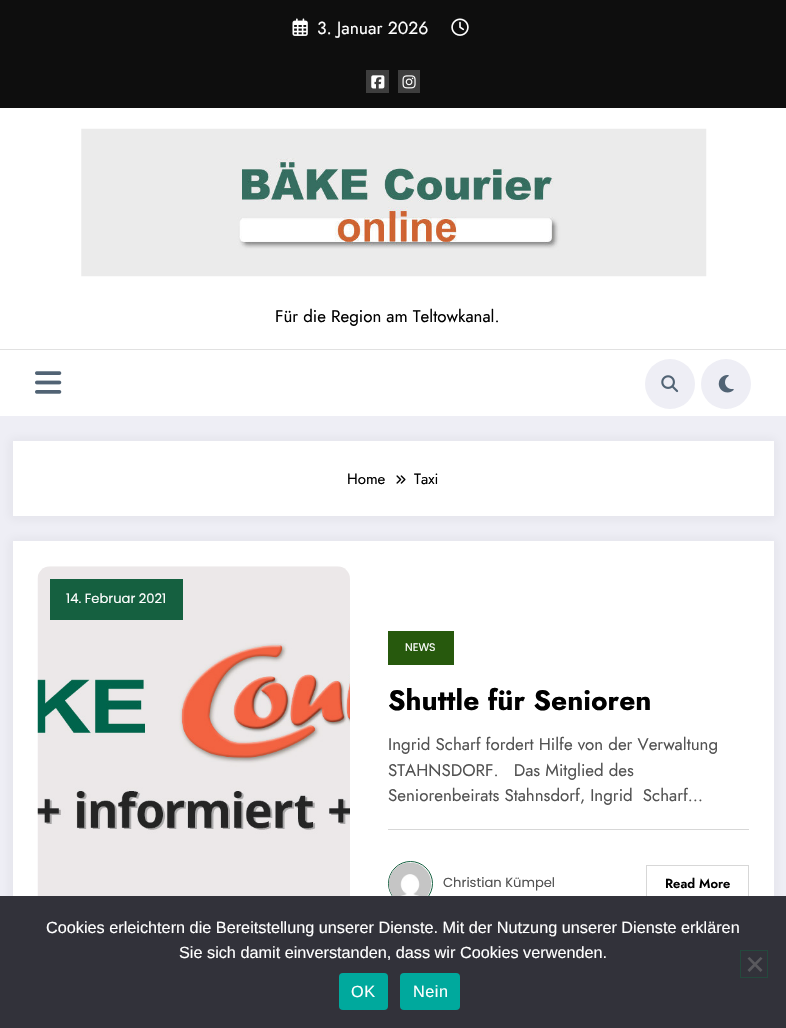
static SkFont makeFont(const char* family, int weight, float size, bool italic = false) {
  SkFontStyle style(weight, SkFontStyle::kNormal_Width,
    italic ? SkFontStyle::kItalic_Slant : SkFontStyle::kUpright_Slant);
  SkFont result(fontMgr->matchFamilyStyle(family, style), size);
  result.setSubpixel(true);
  return result;
}

static void text(SkCanvas* c, const char* s, float x, float y, const SkFont& font, SkColor color) {
  SkPaint ink(SkColor4f::FromColor(color));
  ink.setAntiAlias(true);
  c->drawString(s, x, y, font, ink);
}

static void spacedText(SkCanvas* c, const char* s, float x, float y, const SkFont& font, const SkPaint& ink, float letter, float word) {
  std::vector<SkGlyphID> glyphs(font.countText(s, strlen(s), SkTextEncoding::kUTF8));
  std::vector<float> xs(glyphs.size());
  font.textToGlyphs(s, strlen(s), SkTextEncoding::kUTF8, glyphs);
  font.getXPos(glyphs, xs, x);
  float extra = 0;
  for (size_t i = 0; i < glyphs.size(); i++) {
    xs[i] += extra;
    extra += letter + word * (glyphs[i] == font.unicharToGlyph(' '));
  }
  c->drawTextBlob(SkTextBlob::MakeFromPosHGlyphs(glyphs, xs, y, font), 0, 0, ink);
}

static void box(SkCanvas* c, float l, float t, float r, float b, SkColor color) {
  SkPaint ink(SkColor4f::FromColor(color));
  ink.setAntiAlias(true);
  c->drawRect(SkRect::MakeLTRB(l, t, r, b), ink);
}

static void roundBox(SkCanvas* c, float l, float t, float r, float b, float radius, SkColor color) {
  SkPaint ink(SkColor4f::FromColor(color));
  ink.setAntiAlias(true);
  c->drawRoundRect(SkRect::MakeLTRB(l, t, r, b), radius, radius, ink);
}

static void picture(SkCanvas* c, const char* path, float l, float t, float r, float b) {
  auto image = SkImages::DeferredFromEncodedData(SkData::MakeFromFileName(path));
  c->drawImageRect(image, SkRect::MakeLTRB(l, t, r, b), SkSamplingOptions());
}

void draw(SkCanvas* c) {
  SkPaint paint;
  paint.setAntiAlias(true);
  c->clear(0xffeeeef5);
  box(c, 0, 0, 786, 108, 0xff0e0e0e);
  picture(c, "img_01.png", 292, 18, 308, 36);
  SkFont face1 = makeFont("Jost", 400, 17.5f);
  text(c, "3. Januar 2026", 317, 34, face1, 0xffffffff);
  picture(c, "img_02.png", 451, 18, 469, 36);
  box(c, 366, 70, 389, 93, 0xff3e3e3e);
  picture(c, "img_03.png", 371, 75, 385, 89);
  box(c, 398, 70, 420, 93, 0xff3e3e3e);
  picture(c, "img_04.png", 402, 75, 416, 89);
  box(c, 0, 108, 786, 416, 0xffffffff);
  picture(c, "img_05.png", 81, 128, 707, 277);
  SkFont face2 = makeFont("Jost", 400, 16.9f);
  text(c, "Für die Region am Teltowkanal.", 275, 322, face2, 0xff000000);
  box(c, 0, 349, 786, 350, 0xffe1e1e1);
  picture(c, "img_06.png", 35, 371, 62, 394);
  paint.setColor(0xffeeeef5);
  c->drawCircle(670, 384, 25, paint);
  picture(c, "img_07.png", 661, 375, 679, 393);
  c->drawCircle(726, 384, 25, paint);
  picture(c, "img_08.png", 718, 375, 734, 393);
  paint.setColor(0x0d171723);
  paint.setMaskFilter(SkMaskFilter::MakeBlur(kNormal_SkBlurStyle, 5));
  c->drawRect(SkRect::MakeLTRB(10, 439, 776, 519), paint);
  paint.setMaskFilter(nullptr);
  box(c, 13, 441, 774, 516, 0xffffffff);
  SkFont face3 = makeFont("Jost", 400, 15);
  text(c, "Home", 347, 484, face3, 0xff000000);
  picture(c, "img_09.png", 396, 475, 406, 484);
  text(c, "Taxi", 414, 484, face3, 0xff000000);
  paint.setMaskFilter(SkMaskFilter::MakeBlur(kNormal_SkBlurStyle, 5));
  c->drawRect(SkRect::MakeLTRB(10, 539, 776, 998), paint);
  paint.setMaskFilter(nullptr);
  box(c, 13, 541, 774, 896, 0xffffffff);
  picture(c, "img_10.png", 37, 566, 350, 896);
  box(c, 50, 579, 183, 620, 0xff156040);
  SkFont face4 = makeFont("Poppins", 400, 13.1f);
  text(c, "14. Februar 2021", 66, 603, face4, 0xffffffff);
  box(c, 388, 631, 454, 665, 0xff27590d);
  SkFont face5 = makeFont("Poppins", 400, 11);
  text(c, "NEWS", 405, 651, face5, 0xffffffff);
  SkFont face6 = makeFont("Jost", 700, 28.1f);
  text(c, "Shuttle für Senioren", 388, 710, face6, 0xff000000);
  box(c, 388, 829, 749, 830, 0xffd7d7d7);
  text(c, "Ingrid Scharf fordert Hilfe von der Verwaltung", 388, 750, face2, 0xff525252);
  text(c, "STAHNSDORF.   Das Mitglied des", 388, 776, face2, 0xff525252);
  text(c, "Seniorenbeirats Stahnsdorf, Ingrid  Scharf…", 388, 801, face2, 0xff525252);
  paint.setStyle(SkPaint::kStroke_Style);
  paint.setStrokeWidth(1);
  paint.setColor(0xff156040);
  c->drawCircle(410.5f, 883.5f, 22, paint);
  picture(c, "img_11.png", 388, 862, 431, 896);
  text(c, "Christian Kümpel", 443, 887, face4, 0xff525252);
  paint.setColor(0xffd7d7d7);
  c->drawRect(SkRect::MakeLTRB(646.5f, 865.5f, 748.5f, 902.5f), paint);
  SkFont face7 = makeFont("Jost", 600, 13.1f);
  text(c, "Read More", 665, 888, face7, 0xff000000);
  box(c, 0, 896, 786, 1028, 0xff32323a);
  SkFont face8 = makeFont("Liberation Sans", 400, 16.25f);
  text(c, "Cookies erleichtern die Bereitstellung unserer Dienste. Mit der Nutzung unserer Dienste erklären", 46, 933, face8, 0xffffffff);
  text(c, "Sie sich damit einverstanden, dass wir Cookies verwenden.", 179, 958, face8, 0xffffffff);
  paint.setColor(0xff24493d);
  c->drawRect(SkRect::MakeLTRB(740.5f, 950.5f, 767.5f, 977.5f), paint);
  paint.setStyle(SkPaint::kFill_Style);
  paint.setColor(0xff59595d);
  c->drawPath(SkPathBuilder().moveTo(760.5f, 957).lineTo(762.5f, 958.5f).lineTo(749.5f, 972).lineTo(747.5f, 970).close().detach(), paint);
  c->drawPath(SkPathBuilder().moveTo(747.5f, 958.5f).lineTo(749.5f, 957).lineTo(762.5f, 970).lineTo(760.5f, 972).close().detach(), paint);
  roundBox(c, 339, 973, 388, 1010, 4, 0xff00a99d);
  paint.setColor(0xffffffff);
  spacedText(c, "OK", 351, 997, face8, paint, 0.5f, 0);
  roundBox(c, 400, 973, 460, 1010, 4, 0xff00a99d);
  spacedText(c, "Nein", 413, 997, face8, paint, 0.5f, 0);
}
